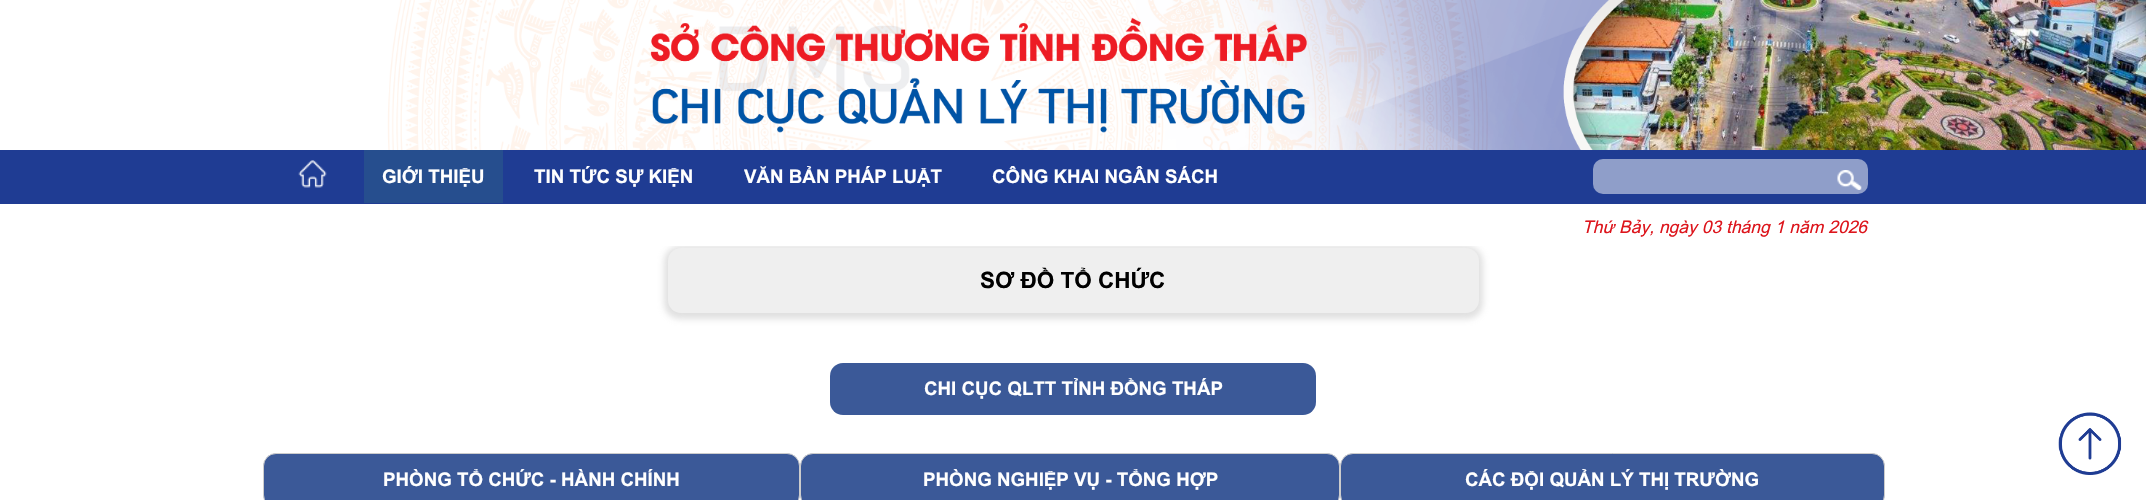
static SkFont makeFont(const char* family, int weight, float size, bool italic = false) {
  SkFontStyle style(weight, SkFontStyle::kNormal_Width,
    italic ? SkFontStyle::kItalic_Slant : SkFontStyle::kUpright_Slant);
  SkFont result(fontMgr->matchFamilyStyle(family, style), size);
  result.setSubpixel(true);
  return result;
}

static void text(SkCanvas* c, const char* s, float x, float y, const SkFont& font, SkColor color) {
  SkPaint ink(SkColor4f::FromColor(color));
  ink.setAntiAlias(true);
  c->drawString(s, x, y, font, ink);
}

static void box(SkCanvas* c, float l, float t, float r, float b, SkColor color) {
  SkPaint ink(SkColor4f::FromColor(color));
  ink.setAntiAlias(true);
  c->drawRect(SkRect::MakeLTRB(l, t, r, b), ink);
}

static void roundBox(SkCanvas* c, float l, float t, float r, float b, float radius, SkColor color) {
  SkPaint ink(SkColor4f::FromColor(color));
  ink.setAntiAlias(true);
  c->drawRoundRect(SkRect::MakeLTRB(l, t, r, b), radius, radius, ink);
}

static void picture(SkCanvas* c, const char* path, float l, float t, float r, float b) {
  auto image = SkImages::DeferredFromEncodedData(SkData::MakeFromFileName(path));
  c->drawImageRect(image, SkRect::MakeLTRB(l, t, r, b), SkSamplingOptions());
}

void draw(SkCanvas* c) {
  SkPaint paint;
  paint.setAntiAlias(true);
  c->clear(0xffffffff);
  picture(c, "img_01.png", 0, 0, 2146, 150);
  box(c, 0, 150, 2146, 204, 0xff1f3c93);
  picture(c, "img_02.png", 298, 160, 327, 188);
  box(c, 364, 150, 503, 203, 0xff264e8e);
  SkFont face1 = makeFont("Arial", 700, 18.75f);
  text(c, "GIỚI THIỆU", 382, 183, face1, 0xffffffff);
  text(c, "TIN TỨC SỰ KIỆN", 534, 183, face1, 0xffffffff);
  text(c, "VĂN BẢN PHÁP LUẬT", 744, 183, face1, 0xffffffff);
  text(c, "CÔNG KHAI NGÂN SÁCH", 992, 183, face1, 0xffffffff);
  roundBox(c, 1593, 159, 1868, 194, 10, 0xff8f9ec9);
  picture(c, "img_03.png", 1837, 170, 1862, 190);
  SkFont face2 = makeFont("Arial", 400, 17.5f, true);
  text(c, "Thứ Bảy, ngày 03 tháng 1 năm 2026", 1582, 233, face2, 0xffdd151c);
  c->save();
  c->clipRect(SkRect::MakeLTRB(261, 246, 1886, 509));
  paint.setColor(0x85c3c3c3);
  paint.setMaskFilter(SkMaskFilter::MakeBlur(kNormal_SkBlurStyle, 3));
  c->drawRoundRect(SkRect::MakeLTRB(664, 246, 1483, 319), 16, 16, paint);
  paint.setMaskFilter(nullptr);
  c->restore();
  roundBox(c, 668, 248, 1479, 313, 13, 0xffefefef);
  SkFont face3 = makeFont("Arial", 700, 22.5f);
  text(c, "SƠ ĐỒ TỔ CHỨC", 980, 288, face3, 0xff000000);
  roundBox(c, 830, 363, 1316, 415, 13, 0xff3b5998);
  text(c, "CHI CỤC QLTT TỈNH ĐỒNG THÁP", 924, 395, face1, 0xffffffff);
  paint.setColor(0xff3b5998);
  c->drawRoundRect(SkRect::MakeLTRB(263.5f, 453.5f, 799.5f, 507.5f), 12.5f, 12.5f, paint);
  paint.setStyle(SkPaint::kStroke_Style);
  paint.setStrokeWidth(1);
  paint.setColor(0xffcccccc);
  c->drawRoundRect(SkRect::MakeLTRB(263.5f, 453.5f, 799.5f, 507.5f), 12.5f, 12.5f, paint);
  text(c, "PHÒNG TỔ CHỨC - HÀNH CHÍNH", 383, 486, face1, 0xffffffff);
  paint.setStyle(SkPaint::kFill_Style);
  paint.setColor(0xff3b5998);
  c->drawRoundRect(SkRect::MakeLTRB(800.5f, 453.5f, 1339.5f, 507.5f), 12.5f, 12.5f, paint);
  paint.setStyle(SkPaint::kStroke_Style);
  paint.setColor(0xffcccccc);
  c->drawRoundRect(SkRect::MakeLTRB(800.5f, 453.5f, 1339.5f, 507.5f), 12.5f, 12.5f, paint);
  text(c, "PHÒNG NGHIỆP VỤ - TỔNG HỢP", 923, 486, face1, 0xffffffff);
  paint.setStyle(SkPaint::kFill_Style);
  paint.setColor(0xff3b5998);
  c->drawRoundRect(SkRect::MakeLTRB(1340.5f, 453.5f, 1884.5f, 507.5f), 12.5f, 12.5f, paint);
  paint.setStyle(SkPaint::kStroke_Style);
  paint.setColor(0xffcccccc);
  c->drawRoundRect(SkRect::MakeLTRB(1340.5f, 453.5f, 1884.5f, 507.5f), 12.5f, 12.5f, paint);
  text(c, "CÁC ĐỘI QUẢN LÝ THỊ TRƯỜNG", 1465, 486, face1, 0xffffffff);
  picture(c, "img_04.png", 2058, 412, 2122, 475);
}
